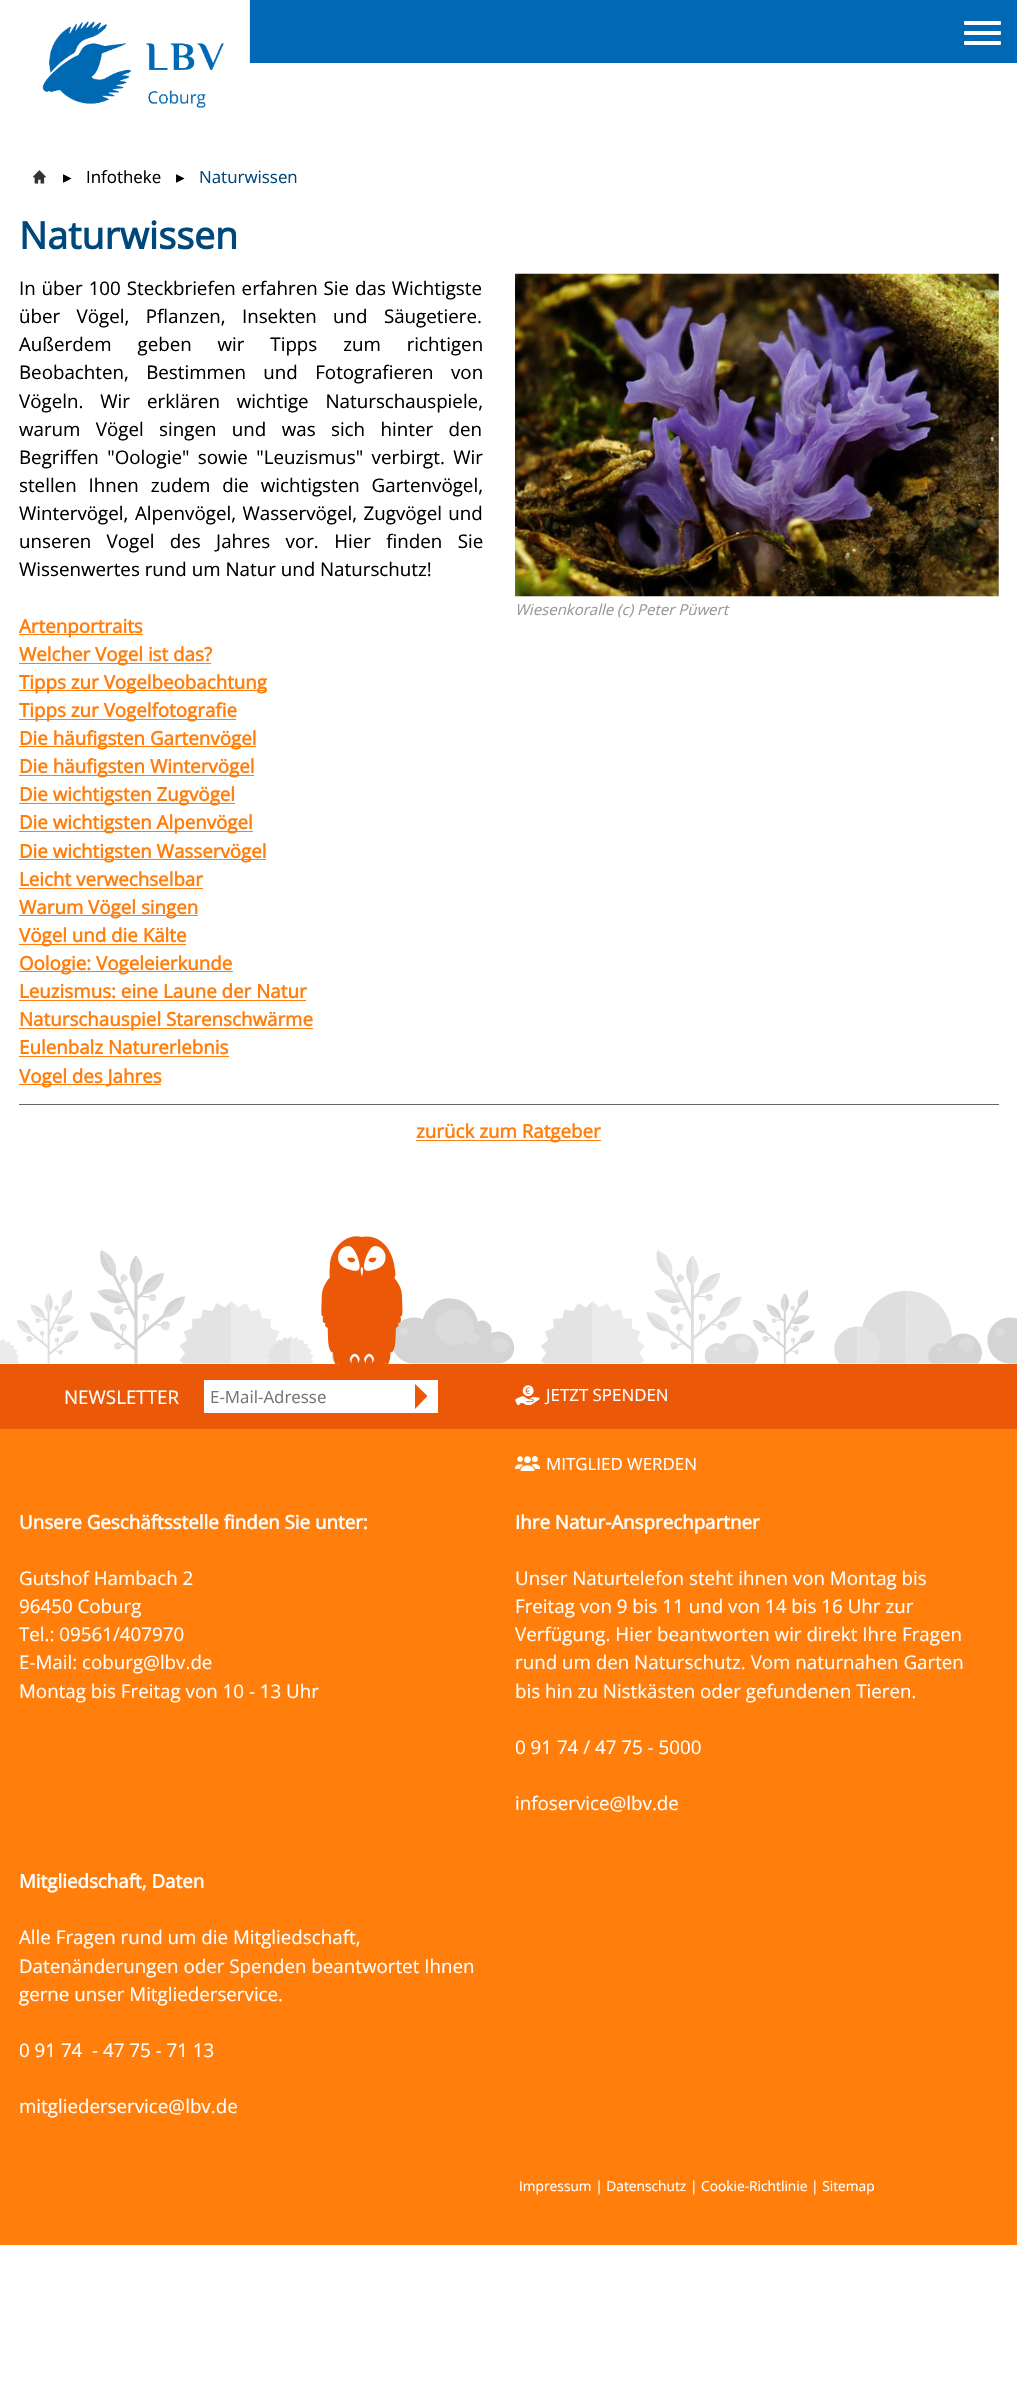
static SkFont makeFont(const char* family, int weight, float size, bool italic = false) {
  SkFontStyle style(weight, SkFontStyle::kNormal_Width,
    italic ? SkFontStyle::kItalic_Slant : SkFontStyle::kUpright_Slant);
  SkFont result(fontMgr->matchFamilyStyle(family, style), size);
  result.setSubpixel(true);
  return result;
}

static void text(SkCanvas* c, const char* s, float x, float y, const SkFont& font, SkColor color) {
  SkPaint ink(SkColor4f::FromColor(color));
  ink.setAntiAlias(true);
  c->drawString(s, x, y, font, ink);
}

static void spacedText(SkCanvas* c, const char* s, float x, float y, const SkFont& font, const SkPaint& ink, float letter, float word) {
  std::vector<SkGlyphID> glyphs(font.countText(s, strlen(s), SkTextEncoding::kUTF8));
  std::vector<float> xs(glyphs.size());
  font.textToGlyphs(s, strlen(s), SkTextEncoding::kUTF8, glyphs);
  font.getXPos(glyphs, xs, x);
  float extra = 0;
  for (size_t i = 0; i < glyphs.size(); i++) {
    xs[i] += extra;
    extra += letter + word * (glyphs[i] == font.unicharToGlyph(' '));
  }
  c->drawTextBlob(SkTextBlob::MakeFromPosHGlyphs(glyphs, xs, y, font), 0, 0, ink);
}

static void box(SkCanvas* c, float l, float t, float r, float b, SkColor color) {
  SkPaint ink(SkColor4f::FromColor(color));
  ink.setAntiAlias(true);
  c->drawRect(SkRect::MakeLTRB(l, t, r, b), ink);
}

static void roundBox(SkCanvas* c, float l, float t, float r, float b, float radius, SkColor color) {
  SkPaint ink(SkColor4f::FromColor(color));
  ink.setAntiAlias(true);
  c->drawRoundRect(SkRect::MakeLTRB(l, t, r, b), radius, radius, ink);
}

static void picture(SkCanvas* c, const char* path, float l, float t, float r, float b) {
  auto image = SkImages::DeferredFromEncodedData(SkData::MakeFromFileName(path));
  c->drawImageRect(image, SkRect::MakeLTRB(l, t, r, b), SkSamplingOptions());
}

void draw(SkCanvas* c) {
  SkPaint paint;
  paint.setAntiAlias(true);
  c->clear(0xffffffff);
  box(c, 249, 0, 1017, 63, 0xff0068b4);
  picture(c, "img_01.png", 0, 0, 250, 108);
  roundBox(c, 964, 21, 1001, 25, 1, 0xffffffff);
  roundBox(c, 964, 31, 1001, 35, 1, 0xffffffff);
  roundBox(c, 964, 41, 1001, 45, 1, 0xffffffff);
  picture(c, "img_02.png", 33, 170, 46, 184);
  SkFont face1 = makeFont("DejaVu Sans", 400, 17);
  text(c, "▸", 63, 183, face1, 0xff000000);
  SkFont face2 = makeFont("Open Sans", 400, 16.9f);
  text(c, "Infotheke", 86, 183, face2, 0xff000000);
  text(c, "▸", 176, 183, face1, 0xff000000);
  text(c, "Naturwissen", 199, 183, face2, 0xff00477c);
  SkFont face3 = makeFont("Open Sans", 700, 37.5f);
  text(c, "Naturwissen", 19, 249, face3, 0xff00477c);
  SkFont face4 = makeFont("Open Sans", 400, 18.75f);
  paint.setColor(0xff000000);
  spacedText(c, "In über 100 Steckbriefen erfahren Sie das Wichtigste", 19, 295, face4, paint, 0, 1);
  spacedText(c, "über Vögel, Pflanzen, Insekten und Säugetiere.", 19, 323, face4, paint, 0, 11.5f);
  spacedText(c, "Außerdem geben wir Tipps zum richtigen", 19, 351, face4, paint, 0, 21);
  spacedText(c, "Beobachten, Bestimmen und Fotografieren von", 19, 379, face4, paint, 0, 12.5f);
  spacedText(c, "Vögeln. Wir", 19, 408, face4, paint, 0, 12);
  spacedText(c, "erklären wichtige Naturschauspiele,", 147, 408, face4, paint, 0, 12);
  spacedText(c, "warum Vögel singen und was sich hinter den", 19, 436, face4, paint, 0, 10.5f);
  spacedText(c, "Begriffen \"Oologie\" sowie \"Leuzismus\" verbirgt. Wir", 19, 464, face4, paint, 0, 3.5f);
  spacedText(c, "stellen Ihnen zudem die wichtigsten Gartenvögel,", 19, 492, face4, paint, 0, 7);
  text(c, "Wintervögel,", 19, 520, face4, 0xff000000);
  spacedText(c, "Alpenvögel, Wasservögel, Zugvögel und", 135, 520, face4, paint, 0, 1.5f);
  spacedText(c, "unseren Vogel des Jahres vor. Hier finden Sie", 19, 548, face4, paint, 0, 10.5f);
  text(c, "Wissenwertes rund um Natur und Naturschutz!", 19, 576, face4, 0xff000000);
  box(c, 19, 634, 143, 635, 0xffff7e0c);
  SkFont face5 = makeFont("Open Sans", 700, 18.75f);
  text(c, "Artenportraits", 19, 633, face5, 0xffff7e0c);
  box(c, 19, 663, 211, 664, 0xffff7e0c);
  text(c, "Welcher Vogel ist das?", 19, 661, face5, 0xffff7e0c);
  box(c, 19, 690, 266, 691, 0xffff7e0c);
  text(c, "Tipps zur Vogelbeobachtung", 19, 689, face5, 0xffff7e0c);
  box(c, 19, 719, 236, 720, 0xffff7e0c);
  text(c, "Tipps zur Vogelfotografie", 19, 717, face5, 0xffff7e0c);
  box(c, 19, 746, 256, 747, 0xffff7e0c);
  text(c, "Die häufigsten Gartenvögel", 19, 745, face5, 0xffff7e0c);
  box(c, 19, 775, 254, 776, 0xffff7e0c);
  text(c, "Die häufigsten Wintervögel", 19, 773, face5, 0xffff7e0c);
  box(c, 19, 803, 235, 804, 0xffff7e0c);
  text(c, "Die wichtigsten Zugvögel", 19, 801, face5, 0xffff7e0c);
  box(c, 19, 831, 253, 832, 0xffff7e0c);
  text(c, "Die wichtigsten Alpenvögel", 19, 829, face5, 0xffff7e0c);
  box(c, 19, 859, 266, 860, 0xffff7e0c);
  text(c, "Die wichtigsten Wasservögel", 19, 858, face5, 0xffff7e0c);
  text(c, "Leicht verwechselbar", 19, 886, face5, 0xffff7e0c);
  box(c, 19, 888, 203, 889, 0xffff7e0c);
  box(c, 19, 915, 198, 916, 0xffff7e0c);
  text(c, "Warum Vögel singen", 19, 914, face5, 0xffff7e0c);
  box(c, 19, 944, 186, 945, 0xffff7e0c);
  text(c, "Vögel und die Kälte", 19, 942, face5, 0xffff7e0c);
  box(c, 19, 971, 233, 972, 0xffff7e0c);
  text(c, "Oologie: Vogeleierkunde", 19, 970, face5, 0xffff7e0c);
  text(c, "Leuzismus: eine Laune der Natur", 19, 998, face5, 0xffff7e0c);
  box(c, 19, 1000, 306, 1001, 0xffff7e0c);
  box(c, 19, 1028, 313, 1029, 0xffff7e0c);
  text(c, "Naturschauspiel Starenschwärme", 19, 1026, face5, 0xffff7e0c);
  text(c, "Eulenbalz Naturerlebnis", 19, 1054, face5, 0xffff7e0c);
  box(c, 19, 1056, 229, 1057, 0xffff7e0c);
  box(c, 19, 1084, 161, 1085, 0xffff7e0c);
  text(c, "Vogel des Jahres", 19, 1083, face5, 0xffff7e0c);
  picture(c, "img_03.png", 515, 273, 999, 597);
  SkFont face6 = makeFont("Open Sans", 400, 15, true);
  text(c, "Wiesenkoralle (c) Peter Püwert", 515, 615, face6, 0xff999999);
  box(c, 19, 1104, 999, 1105, 0xff666666);
  box(c, 416, 1140, 601, 1141, 0xffff7e0c);
  text(c, "zurück zum Ratgeber", 416, 1138, face5, 0xffff7e0c);
  picture(c, "img_05.png", 0, 1250, 1017, 1364);
  picture(c, "img_04.png", 321, 1236, 403, 1364);
  box(c, 0, 1364, 1017, 1429, 0xffeb5808);
  box(c, 0, 1429, 1017, 2245, 0xffff7e0c);
  text(c, "NEWSLETTER", 64, 1404, face4, 0xffffffff);
  box(c, 204, 1380, 438, 1413, 0xffffffff);
  text(c, "E-Mail-Adresse", 210, 1403, face2, 0xff757575);
  paint.setColor(0xffeb5808);
  c->drawPath(SkPathBuilder().moveTo(415, 1409).lineTo(415, 1384).lineTo(427.5f, 1396).close().detach(), paint);
  picture(c, "img_06.png", 515, 1385, 540, 1405);
  text(c, "JETZT SPENDEN", 546, 1401, face2, 0xffffffff);
  picture(c, "img_07.png", 515, 1456, 540, 1471);
  text(c, "MITGLIED WERDEN", 546, 1470, face2, 0xffffffff);
  text(c, "Unsere Geschäftsstelle finden Sie unter:", 19, 1529, face5, 0xffffffff);
  text(c, "Gutshof Hambach 2", 19, 1585, face4, 0xffffffff);
  text(c, "96450 Coburg", 19, 1613, face4, 0xffffffff);
  text(c, "Tel.: 09561/407970", 19, 1641, face4, 0xffffffff);
  text(c, "E-Mail: coburg@lbv.de", 19, 1669, face4, 0xffffffff);
  text(c, "Montag bis Freitag von 10 - 13 Uhr", 19, 1698, face4, 0xffffffff);
  text(c, "Ihre Natur-Ansprechpartner", 515, 1529, face5, 0xffffffff);
  text(c, "Unser Naturtelefon steht ihnen von Montag bis", 515, 1585, face4, 0xffffffff);
  text(c, "Freitag von 9 bis 11 und von 14 bis 16 Uhr zur", 515, 1613, face4, 0xffffffff);
  text(c, "Verfügung. Hier beantworten wir direkt Ihre Fragen", 515, 1641, face4, 0xffffffff);
  text(c, "rund um den Naturschutz. Vom naturnahen Garten", 515, 1669, face4, 0xffffffff);
  text(c, "bis hin zu Nistkästen oder gefundenen Tieren.", 515, 1698, face4, 0xffffffff);
  text(c, "0 91 74 / 47 75 - 5000", 515, 1754, face4, 0xffffffff);
  text(c, "infoservice@lbv.de", 515, 1810, face4, 0xffffffff);
  text(c, "Mitgliedschaft, Daten", 19, 1888, face5, 0xffffffff);
  text(c, "Alle Fragen rund um die Mitgliedschaft,", 19, 1944, face4, 0xffffffff);
  text(c, "Datenänderungen oder Spenden beantwortet Ihnen", 19, 1973, face4, 0xffffffff);
  text(c, "gerne unser Mitgliederservice.", 19, 2001, face4, 0xffffffff);
  text(c, "0 91 74  - 47 75 - 71 13", 19, 2057, face4, 0xffffffff);
  text(c, "mitgliederservice@lbv.de", 19, 2113, face4, 0xffffffff);
  SkFont face7 = makeFont("Open Sans", 400, 13.75f);
  text(c, "Impressum | Datenschutz | Cookie-Richtlinie | Sitemap", 519, 2191, face7, 0xffffffff);
}
